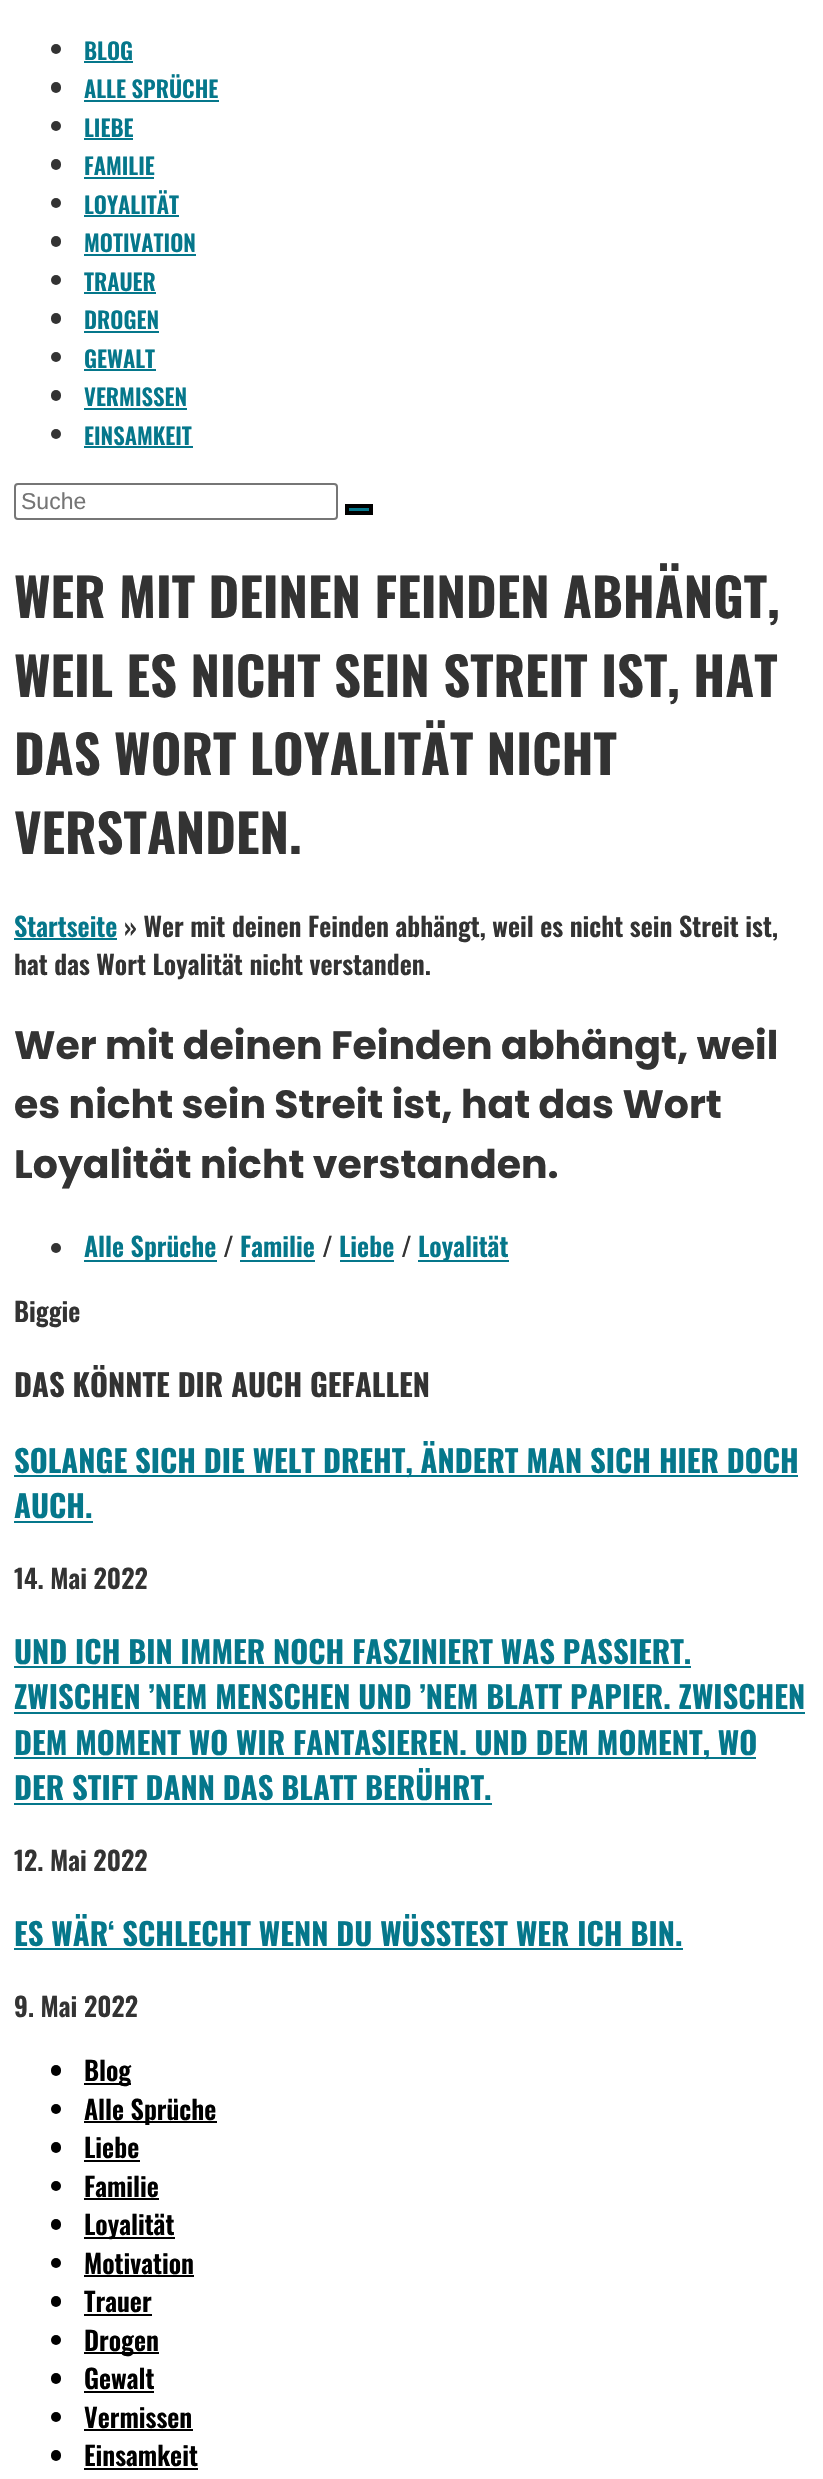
static SkFont makeFont(const char* family, int weight, float size, bool italic = false) {
  SkFontStyle style(weight, SkFontStyle::kNormal_Width,
    italic ? SkFontStyle::kItalic_Slant : SkFontStyle::kUpright_Slant);
  SkFont result(fontMgr->matchFamilyStyle(family, style), size);
  result.setSubpixel(true);
  return result;
}

static void text(SkCanvas* c, const char* s, float x, float y, const SkFont& font, SkColor color) {
  SkPaint ink(SkColor4f::FromColor(color));
  ink.setAntiAlias(true);
  c->drawString(s, x, y, font, ink);
}

static void box(SkCanvas* c, float l, float t, float r, float b, SkColor color) {
  SkPaint ink(SkColor4f::FromColor(color));
  ink.setAntiAlias(true);
  c->drawRect(SkRect::MakeLTRB(l, t, r, b), ink);
}

static void roundBox(SkCanvas* c, float l, float t, float r, float b, float radius, SkColor color) {
  SkPaint ink(SkColor4f::FromColor(color));
  ink.setAntiAlias(true);
  c->drawRoundRect(SkRect::MakeLTRB(l, t, r, b), radius, radius, ink);
}

void draw(SkCanvas* c) {
  SkPaint paint;
  paint.setAntiAlias(true);
  c->clear(0xffffffff);
  paint.setColor(0xff333333);
  c->drawCircle(56, 49, 5, paint);
  SkFont face1 = makeFont("Oswald", 600, 22.75f);
  text(c, "BLOG", 84, 60, face1, 0xff05778b);
  box(c, 84, 61, 133, 63, 0xff05778b);
  roundBox(c, 51, 82, 61, 93, 5, 0xff333333);
  text(c, "ALLE SPRÜCHE", 84, 98, face1, 0xff05778b);
  box(c, 84, 100, 219, 102, 0xff05778b);
  c->drawCircle(56, 126, 5, paint);
  text(c, "LIEBE", 84, 137, face1, 0xff05778b);
  box(c, 84, 138, 133, 140, 0xff05778b);
  roundBox(c, 51, 159, 61, 170, 5, 0xff333333);
  text(c, "FAMILIE", 84, 175, face1, 0xff05778b);
  box(c, 84, 177, 154, 179, 0xff05778b);
  c->drawCircle(56, 203, 5, paint);
  text(c, "LOYALITÄT", 84, 214, face1, 0xff05778b);
  box(c, 84, 215, 179, 217, 0xff05778b);
  roundBox(c, 51, 236, 61, 247, 5, 0xff333333);
  text(c, "MOTIVATION", 84, 252, face1, 0xff05778b);
  box(c, 84, 254, 196, 256, 0xff05778b);
  c->drawCircle(56, 280, 5, paint);
  text(c, "TRAUER", 84, 291, face1, 0xff05778b);
  box(c, 84, 292, 156, 294, 0xff05778b);
  roundBox(c, 51, 313, 61, 324, 5, 0xff333333);
  text(c, "DROGEN", 84, 329, face1, 0xff05778b);
  box(c, 84, 331, 159, 333, 0xff05778b);
  c->drawCircle(56, 357, 5, paint);
  text(c, "GEWALT", 84, 368, face1, 0xff05778b);
  box(c, 84, 369, 156, 371, 0xff05778b);
  roundBox(c, 51, 390, 61, 401, 5, 0xff333333);
  text(c, "VERMISSEN", 84, 406, face1, 0xff05778b);
  box(c, 84, 408, 187, 410, 0xff05778b);
  c->drawCircle(56, 434, 5, paint);
  text(c, "EINSAMKEIT", 84, 445, face1, 0xff05778b);
  box(c, 84, 446, 193, 448, 0xff05778b);
  paint.setStyle(SkPaint::kStroke_Style);
  paint.setStrokeWidth(2);
  paint.setColor(0xff767676);
  c->drawRoundRect(SkRect::MakeLTRB(15, 484, 337, 519), 3, 3, paint);
  SkFont face2 = makeFont("Liberation Sans", 400, 23);
  text(c, "Suche", 21, 509, face2, 0xff757575);
  paint.setStyle(SkPaint::kFill_Style);
  paint.setColor(0xff05778b);
  c->drawRect(SkRect::MakeLTRB(347, 506, 371, 513), paint);
  paint.setStyle(SkPaint::kStroke_Style);
  paint.setStrokeWidth(4);
  paint.setColor(0xff000000);
  c->drawRect(SkRect::MakeLTRB(347, 506, 371, 513), paint);
  SkFont face3 = makeFont("Oswald", 700, 52.5f);
  text(c, "WER MIT DEINEN FEINDEN ABHÄNGT,", 14, 618, face3, 0xff333333);
  text(c, "WEIL ES NICHT SEIN STREIT IST, HAT", 14, 697, face3, 0xff333333);
  text(c, "DAS WORT LOYALITÄT NICHT", 14, 775, face3, 0xff333333);
  text(c, "VERSTANDEN.", 14, 854, face3, 0xff333333);
  SkFont face4 = makeFont("Oswald", 600, 26.25f);
  text(c, "Startseite", 14, 937, face4, 0xff05778b);
  box(c, 14, 938, 117, 940, 0xff05778b);
  text(c, "» Wer mit deinen Feinden abhängt, weil es nicht sein Streit ist,", 124, 937, face4, 0xff333333);
  text(c, "hat das Wort Loyalität nicht verstanden.", 14, 975, face4, 0xff333333);
  SkFont face5 = makeFont("Poppins", 700, 39.4f);
  text(c, "Wer mit deinen Feinden abhängt, weil", 14, 1059, face5, 0xff333333);
  text(c, "es nicht sein Streit ist, hat das Wort", 14, 1118, face5, 0xff333333);
  text(c, "Loyalität nicht verstanden.", 14, 1178, face5, 0xff333333);
  paint.setStyle(SkPaint::kFill_Style);
  paint.setColor(0xff333333);
  c->drawCircle(56, 1248, 5, paint);
  box(c, 84, 1260, 217, 1262, 0xff05778b);
  text(c, "Alle Sprüche", 84, 1257, face4, 0xff05778b);
  text(c, "/", 223, 1257, face4, 0xff333333);
  text(c, "Familie", 240, 1257, face4, 0xff05778b);
  box(c, 240, 1260, 315, 1262, 0xff05778b);
  text(c, "/", 322, 1257, face4, 0xff333333);
  text(c, "Liebe", 339, 1257, face4, 0xff05778b);
  box(c, 340, 1260, 394, 1262, 0xff05778b);
  text(c, "/", 401, 1257, face4, 0xff333333);
  box(c, 418, 1260, 509, 1262, 0xff05778b);
  text(c, "Loyalität", 418, 1257, face4, 0xff05778b);
  text(c, "Biggie", 14, 1322, face4, 0xff333333);
  SkFont face6 = makeFont("Oswald", 700, 30.7f);
  text(c, "DAS KÖNNTE DIR AUCH GEFALLEN", 14, 1397, face6, 0xff333333);
  box(c, 14, 1475, 798, 1477, 0xff05778b);
  text(c, "SOLANGE SICH DIE WELT DREHT, ÄNDERT MAN SICH HIER DOCH", 14, 1473, face6, 0xff05778b);
  text(c, "AUCH.", 14, 1518, face6, 0xff05778b);
  box(c, 14, 1521, 93, 1523, 0xff05778b);
  text(c, "14. Mai 2022", 14, 1589, face4, 0xff333333);
  text(c, "UND ICH BIN IMMER NOCH FASZINIERT WAS PASSIERT.", 14, 1664, face6, 0xff05778b);
  box(c, 14, 1666, 691, 1668, 0xff05778b);
  text(c, "ZWISCHEN ’NEM MENSCHEN UND ’NEM BLATT PAPIER. ZWISCHEN", 14, 1709, face6, 0xff05778b);
  box(c, 14, 1712, 805, 1714, 0xff05778b);
  box(c, 14, 1757, 756, 1759, 0xff05778b);
  text(c, "DEM MOMENT WO WIR FANTASIEREN. UND DEM MOMENT, WO", 14, 1755, face6, 0xff05778b);
  text(c, "DER STIFT DANN DAS BLATT BERÜHRT.", 14, 1800, face6, 0xff05778b);
  box(c, 14, 1803, 492, 1805, 0xff05778b);
  text(c, "12. Mai 2022", 14, 1871, face4, 0xff333333);
  text(c, "ES WÄR‘ SCHLECHT WENN DU WÜSSTEST WER ICH BIN.", 14, 1946, face6, 0xff05778b);
  box(c, 14, 1948, 683, 1950, 0xff05778b);
  text(c, "9. Mai 2022", 14, 2017, face4, 0xff333333);
  roundBox(c, 51, 2065, 61, 2076, 5, 0xff000000);
  box(c, 84, 2083, 131, 2085, 0xff000000);
  text(c, "Blog", 84, 2081, face4, 0xff000000);
  paint.setColor(0xff000000);
  c->drawCircle(56, 2109, 5, paint);
  box(c, 84, 2121, 217, 2123, 0xff000000);
  text(c, "Alle Sprüche", 84, 2120, face4, 0xff000000);
  roundBox(c, 51, 2142, 61, 2153, 5, 0xff000000);
  text(c, "Liebe", 84, 2158, face4, 0xff000000);
  box(c, 84, 2160, 140, 2162, 0xff000000);
  c->drawCircle(56, 2186, 5, paint);
  text(c, "Familie", 84, 2197, face4, 0xff000000);
  box(c, 84, 2198, 159, 2200, 0xff000000);
  roundBox(c, 51, 2219, 61, 2230, 5, 0xff000000);
  box(c, 84, 2237, 175, 2239, 0xff000000);
  text(c, "Loyalität", 84, 2235, face4, 0xff000000);
  c->drawCircle(56, 2263, 5, paint);
  text(c, "Motivation", 84, 2274, face4, 0xff000000);
  box(c, 84, 2275, 194, 2277, 0xff000000);
  roundBox(c, 51, 2296, 61, 2307, 5, 0xff000000);
  text(c, "Trauer", 84, 2312, face4, 0xff000000);
  box(c, 84, 2314, 152, 2316, 0xff000000);
  c->drawCircle(56, 2340, 5, paint);
  box(c, 84, 2352, 159, 2354, 0xff000000);
  text(c, "Drogen", 84, 2351, face4, 0xff000000);
  roundBox(c, 51, 2373, 61, 2384, 5, 0xff000000);
  text(c, "Gewalt", 84, 2389, face4, 0xff000000);
  box(c, 84, 2391, 154, 2393, 0xff000000);
  c->drawCircle(56, 2417, 5, paint);
  text(c, "Vermissen", 84, 2428, face4, 0xff000000);
  box(c, 84, 2429, 193, 2431, 0xff000000);
  roundBox(c, 51, 2450, 61, 2461, 5, 0xff000000);
  text(c, "Einsamkeit", 84, 2466, face4, 0xff000000);
  box(c, 84, 2468, 198, 2470, 0xff000000);
}
